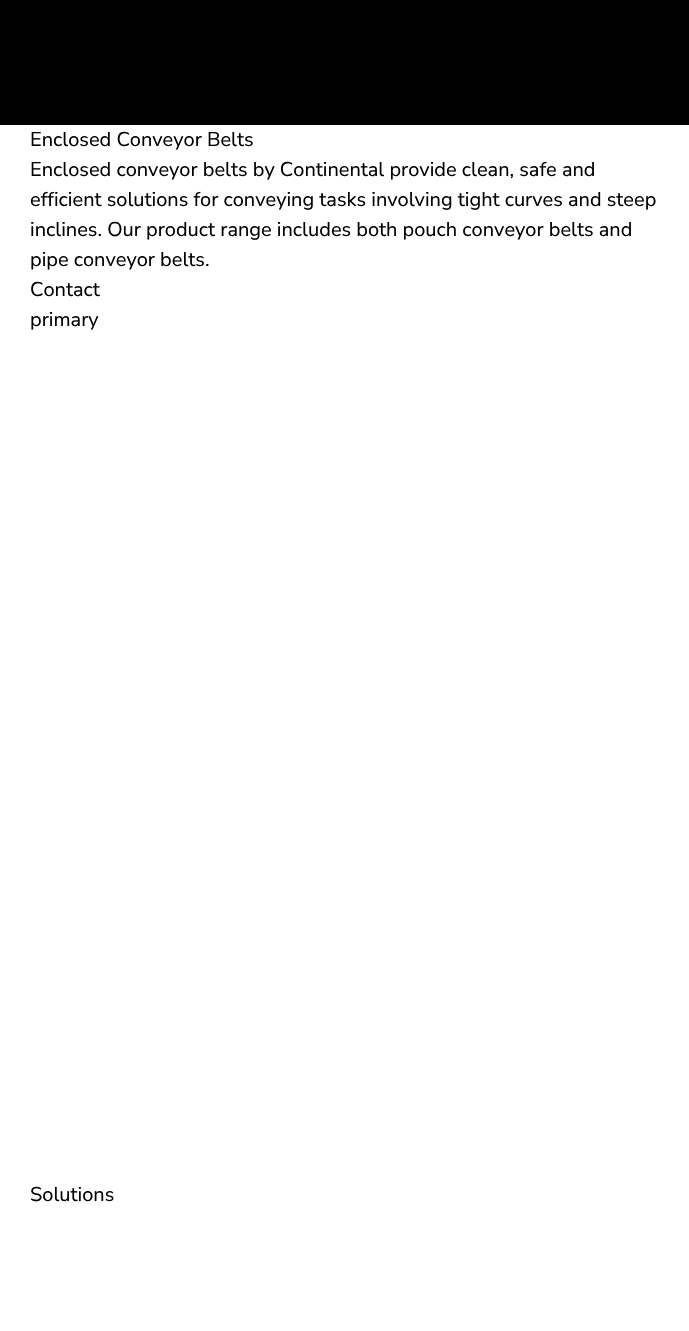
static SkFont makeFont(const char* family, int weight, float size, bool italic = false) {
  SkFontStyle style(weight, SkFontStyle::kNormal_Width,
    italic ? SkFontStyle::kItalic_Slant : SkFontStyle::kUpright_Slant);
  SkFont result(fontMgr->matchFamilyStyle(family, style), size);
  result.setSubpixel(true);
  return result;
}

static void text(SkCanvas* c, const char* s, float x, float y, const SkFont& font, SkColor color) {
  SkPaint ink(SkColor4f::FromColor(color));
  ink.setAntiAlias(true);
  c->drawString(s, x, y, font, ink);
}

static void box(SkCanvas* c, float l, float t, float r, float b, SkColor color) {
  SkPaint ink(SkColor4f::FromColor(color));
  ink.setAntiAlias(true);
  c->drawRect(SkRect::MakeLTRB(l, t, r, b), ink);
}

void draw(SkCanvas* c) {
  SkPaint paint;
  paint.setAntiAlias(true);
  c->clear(0xffffffff);
  box(c, 0, 0, 689, 125, 0xff000000);
  SkFont face1 = makeFont("Nunito Sans", 400, 20);
  text(c, "Enclosed Conveyor Belts", 30, 146, face1, 0xff000000);
  text(c, "Enclosed conveyor belts by Continental provide clean, safe and", 30, 176, face1, 0xff000000);
  text(c, "efficient solutions for conveying tasks involving tight curves and steep", 30, 206, face1, 0xff000000);
  text(c, "inclines. Our product range includes both pouch conveyor belts and", 30, 236, face1, 0xff000000);
  text(c, "pipe conveyor belts.", 30, 266, face1, 0xff000000);
  text(c, "Contact", 30, 296, face1, 0xff000000);
  text(c, "primary", 30, 326, face1, 0xff000000);
  text(c, "Solutions", 30, 1201, face1, 0xff000000);
}
